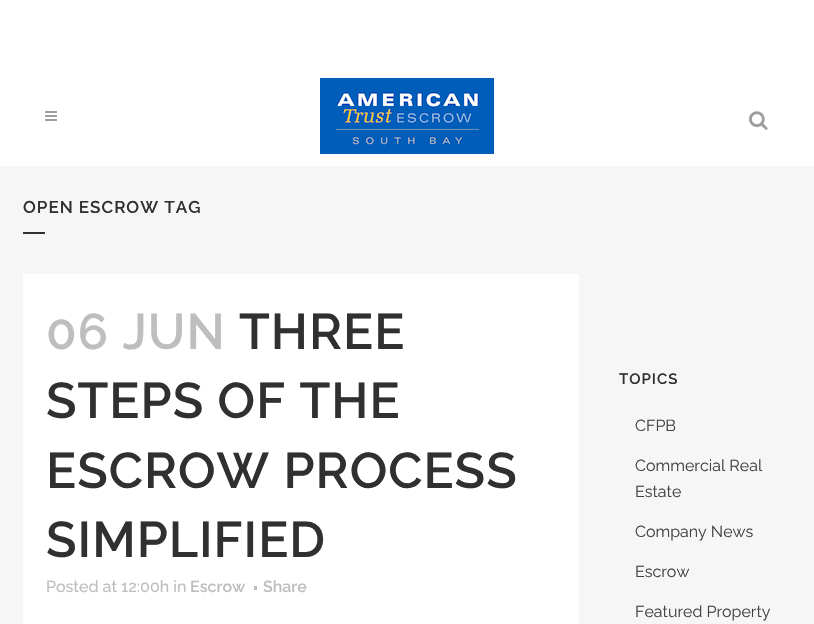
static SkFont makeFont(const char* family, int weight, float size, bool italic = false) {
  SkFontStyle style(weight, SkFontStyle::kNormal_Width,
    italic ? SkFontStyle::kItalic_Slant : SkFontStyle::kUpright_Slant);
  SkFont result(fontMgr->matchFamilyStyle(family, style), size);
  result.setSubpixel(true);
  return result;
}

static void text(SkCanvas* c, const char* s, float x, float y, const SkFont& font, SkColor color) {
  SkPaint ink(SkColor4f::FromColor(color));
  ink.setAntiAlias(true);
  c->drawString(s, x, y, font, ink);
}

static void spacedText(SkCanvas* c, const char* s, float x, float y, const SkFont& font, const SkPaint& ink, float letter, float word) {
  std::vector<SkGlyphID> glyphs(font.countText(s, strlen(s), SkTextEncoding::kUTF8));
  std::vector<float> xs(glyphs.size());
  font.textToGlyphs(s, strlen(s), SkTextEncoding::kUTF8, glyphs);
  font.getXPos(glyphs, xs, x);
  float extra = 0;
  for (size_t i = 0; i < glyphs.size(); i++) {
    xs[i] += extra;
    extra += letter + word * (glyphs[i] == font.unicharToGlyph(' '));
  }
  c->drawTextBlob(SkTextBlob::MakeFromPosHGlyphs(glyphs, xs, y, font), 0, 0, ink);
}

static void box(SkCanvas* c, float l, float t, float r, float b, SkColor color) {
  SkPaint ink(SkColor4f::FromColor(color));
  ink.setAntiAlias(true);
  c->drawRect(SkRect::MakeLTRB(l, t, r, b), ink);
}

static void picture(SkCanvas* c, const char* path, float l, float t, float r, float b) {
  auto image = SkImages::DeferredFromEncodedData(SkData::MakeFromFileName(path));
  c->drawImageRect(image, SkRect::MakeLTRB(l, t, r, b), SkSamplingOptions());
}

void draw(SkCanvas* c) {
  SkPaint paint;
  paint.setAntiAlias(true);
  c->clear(0xfff6f6f6);
  box(c, 0, 0, 814, 166, 0xffffffff);
  picture(c, "img_01.png", 45, 111, 57, 121);
  picture(c, "img_02.png", 320, 78, 494, 154);
  picture(c, "img_03.png", 749, 111, 768, 130);
  SkFont face1 = makeFont("Raleway", 600, 17);
  paint.setColor(0xff303030);
  spacedText(c, "OPEN ESCROW TAG", 23, 213, face1, paint, 1, 0);
  box(c, 23, 232, 45, 234, 0xff303030);
  box(c, 23, 274, 579, 624, 0xffffffff);
  SkFont face2 = makeFont("Raleway", 600, 50);
  paint.setColor(0xffbebebe);
  spacedText(c, "06 JUN", 46, 349, face2, paint, 1, 0);
  paint.setColor(0xff303030);
  spacedText(c, "THREE", 239, 349, face2, paint, 1, 0);
  spacedText(c, "STEPS OF THE", 46, 418, face2, paint, 1, 0);
  spacedText(c, "ESCROW PROCESS", 46, 488, face2, paint, 1, 0);
  spacedText(c, "SIMPLIFIED", 46, 557, face2, paint, 1, 0);
  SkFont face3 = makeFont("Raleway", 500, 16);
  text(c, "Posted at 12:00h in", 46, 592, face3, 0xffbebebe);
  SkFont face4 = makeFont("Raleway", 600, 16);
  text(c, "Escrow", 190, 592, face4, 0xffbebebe);
  box(c, 254, 586, 257, 590, 0xffbebebe);
  text(c, "Share", 263, 592, face4, 0xffbebebe);
  SkFont face5 = makeFont("Raleway", 600, 15);
  spacedText(c, "TOPICS", 619, 384, face5, paint, 1, 0);
  SkFont face6 = makeFont("Raleway", 400, 16);
  text(c, "CFPB", 635, 431, face6, 0xff424242);
  text(c, "Commercial Real", 635, 471, face6, 0xff424242);
  text(c, "Estate", 635, 497, face6, 0xff424242);
  text(c, "Company News", 635, 537, face6, 0xff424242);
  text(c, "Escrow", 635, 577, face6, 0xff424242);
  text(c, "Featured Property", 635, 617, face6, 0xff424242);
}
